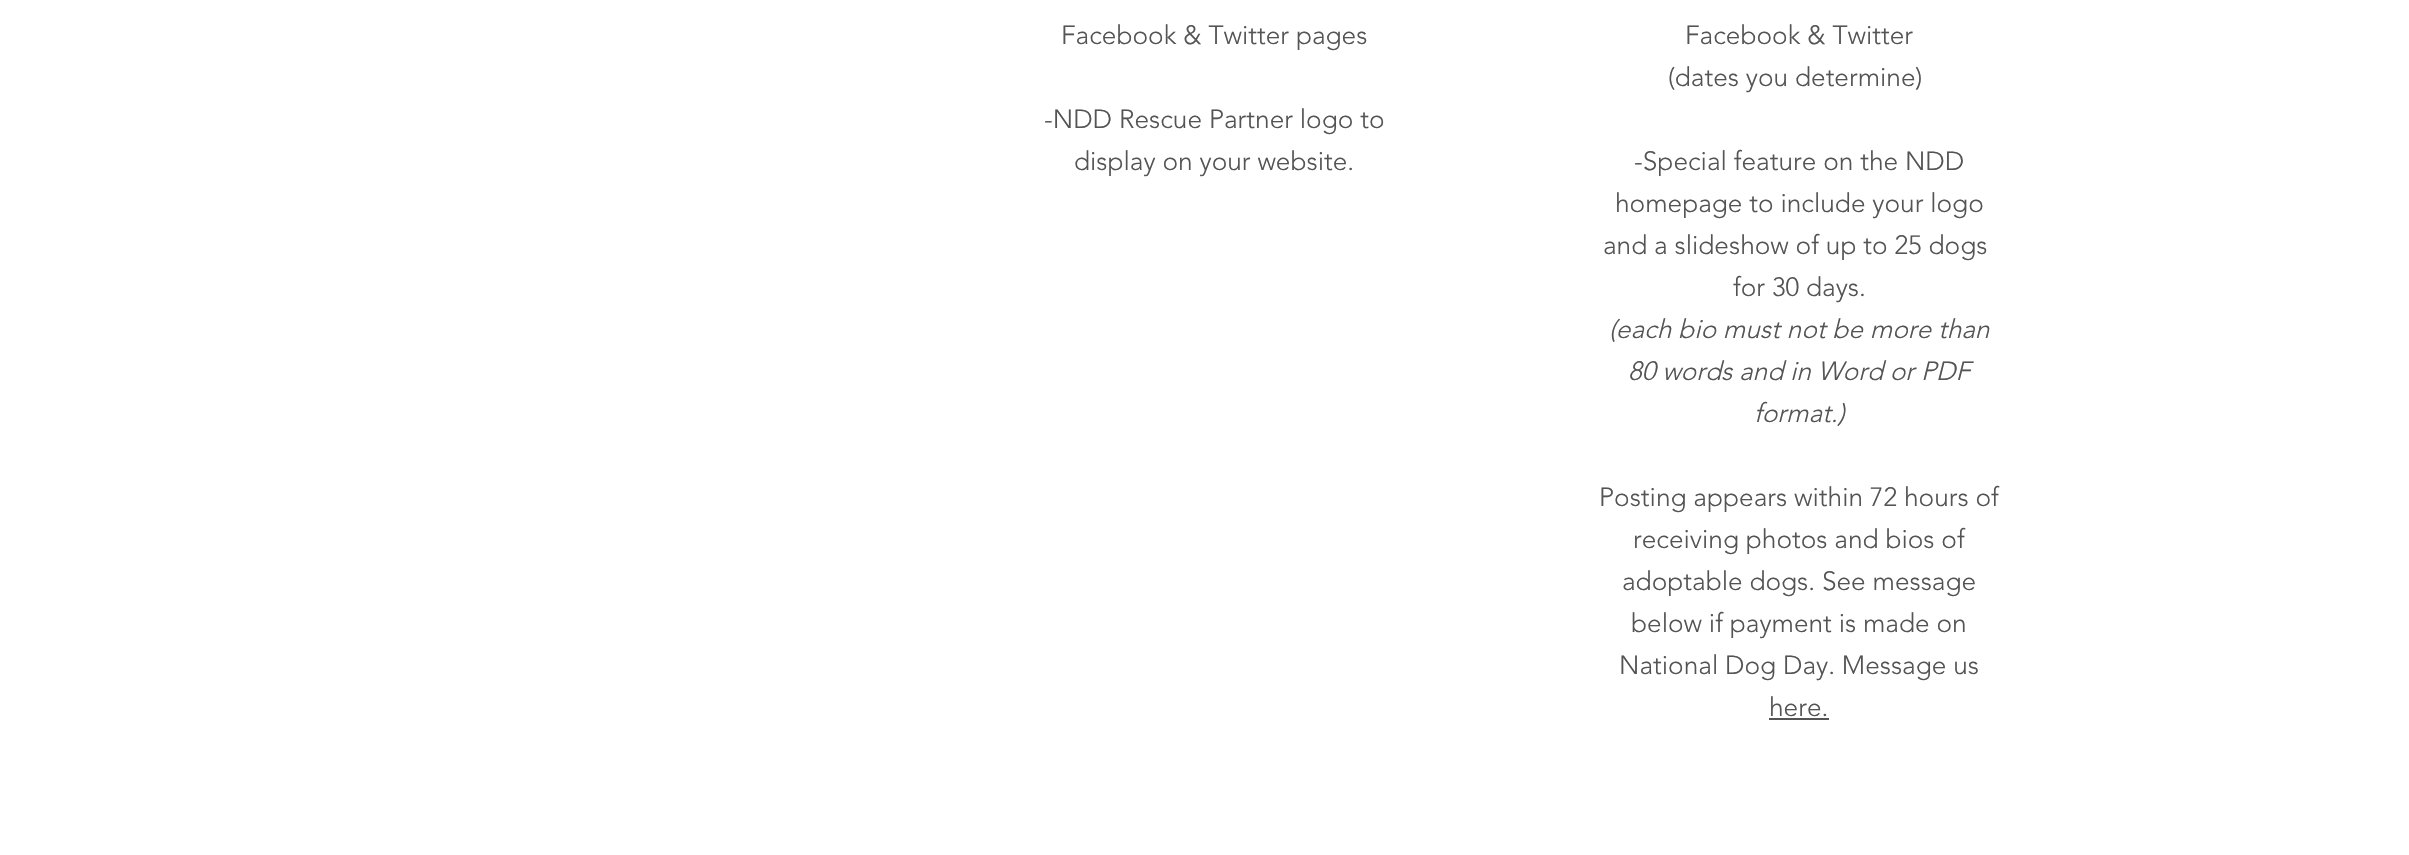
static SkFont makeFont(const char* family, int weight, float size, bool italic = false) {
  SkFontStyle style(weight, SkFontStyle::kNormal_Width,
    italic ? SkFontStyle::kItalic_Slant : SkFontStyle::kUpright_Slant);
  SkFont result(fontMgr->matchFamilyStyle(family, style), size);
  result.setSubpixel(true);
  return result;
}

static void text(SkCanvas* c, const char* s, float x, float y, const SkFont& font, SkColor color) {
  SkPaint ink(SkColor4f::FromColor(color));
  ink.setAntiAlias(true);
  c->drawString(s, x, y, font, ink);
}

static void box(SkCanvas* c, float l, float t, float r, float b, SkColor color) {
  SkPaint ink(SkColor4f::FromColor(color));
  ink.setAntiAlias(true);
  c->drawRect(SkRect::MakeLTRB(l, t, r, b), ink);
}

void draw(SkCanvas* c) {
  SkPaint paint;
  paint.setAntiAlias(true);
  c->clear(0xffffffff);
  SkFont face1 = makeFont("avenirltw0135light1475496", 300, 26.25f);
  text(c, "Facebook & Twitter pages", 1061, 44, face1, 0xff545454);
  text(c, "-NDD Rescue Partner logo to", 1044, 128, face1, 0xff545454);
  text(c, "display on your website.", 1074, 170, face1, 0xff545454);
  text(c, "Facebook & Twitter", 1685, 44, face1, 0xff545454);
  text(c, "(dates you determine)", 1668, 86, face1, 0xff545454);
  text(c, "-Special feature on the NDD", 1634, 170, face1, 0xff545454);
  text(c, "homepage to include your logo", 1615, 212, face1, 0xff545454);
  text(c, "and a slideshow of up to 25 dogs", 1603, 254, face1, 0xff545454);
  text(c, "for 30 days.", 1733, 296, face1, 0xff545454);
  SkFont face2 = makeFont("avenirltw0135light1475496", 300, 26.25f, true);
  text(c, "(each bio must not be more than", 1609, 338, face2, 0xff545454);
  text(c, "80 words and in Word or PDF", 1628, 380, face2, 0xff545454);
  text(c, "format.)", 1754, 422, face2, 0xff545454);
  text(c, "Posting appears within 72 hours of", 1599, 506, face1, 0xff545454);
  text(c, "receiving photos and bios of", 1633, 548, face1, 0xff545454);
  text(c, "adoptable dogs. See message", 1622, 590, face1, 0xff545454);
  text(c, "below if payment is made on", 1631, 632, face1, 0xff545454);
  text(c, "National Dog Day. Message us", 1619, 674, face1, 0xff545454);
  text(c, "here.", 1769, 716, face1, 0xff545454);
  box(c, 1769, 718, 1829, 720, 0xff545454);
}
